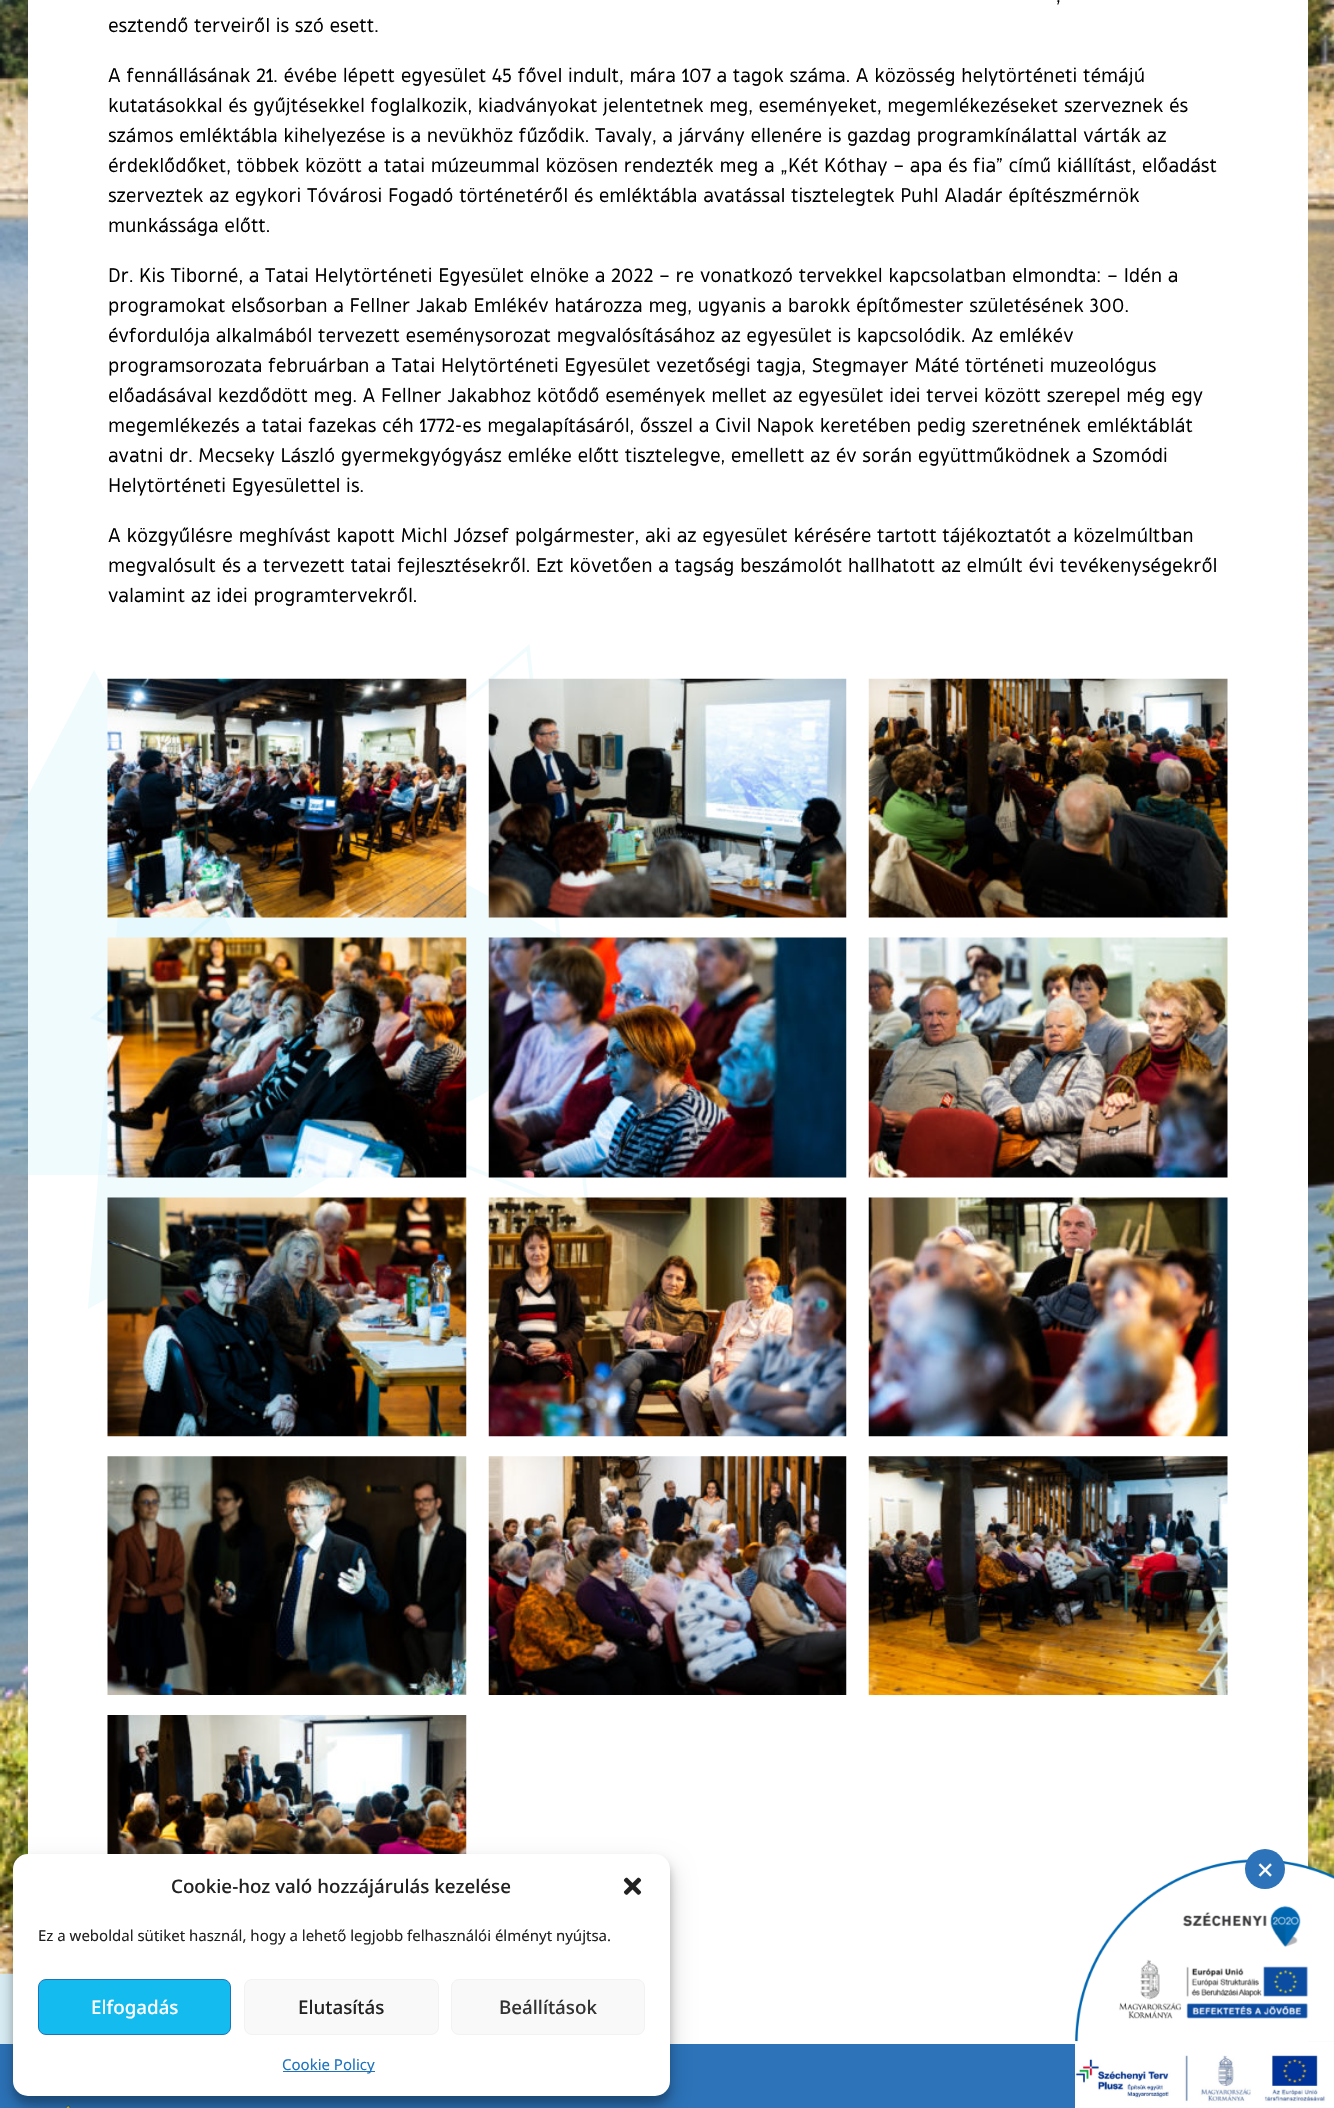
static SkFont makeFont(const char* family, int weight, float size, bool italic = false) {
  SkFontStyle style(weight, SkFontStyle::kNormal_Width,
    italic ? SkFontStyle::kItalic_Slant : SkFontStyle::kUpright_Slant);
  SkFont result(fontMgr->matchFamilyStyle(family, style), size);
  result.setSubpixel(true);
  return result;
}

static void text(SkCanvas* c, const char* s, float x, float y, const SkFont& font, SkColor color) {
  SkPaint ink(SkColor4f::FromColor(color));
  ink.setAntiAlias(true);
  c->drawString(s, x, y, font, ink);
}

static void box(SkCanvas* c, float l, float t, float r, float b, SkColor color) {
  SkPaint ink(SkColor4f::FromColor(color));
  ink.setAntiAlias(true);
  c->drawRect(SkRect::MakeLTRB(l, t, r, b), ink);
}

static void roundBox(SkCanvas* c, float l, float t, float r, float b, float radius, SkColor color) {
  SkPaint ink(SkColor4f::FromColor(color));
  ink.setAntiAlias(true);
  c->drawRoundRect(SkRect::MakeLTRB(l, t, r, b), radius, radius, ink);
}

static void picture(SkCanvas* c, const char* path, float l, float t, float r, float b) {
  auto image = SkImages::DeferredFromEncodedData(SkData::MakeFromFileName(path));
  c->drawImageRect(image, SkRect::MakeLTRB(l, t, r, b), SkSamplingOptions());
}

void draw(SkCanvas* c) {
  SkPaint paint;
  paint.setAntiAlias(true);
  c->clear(0xffdcf1f9);
  picture(c, "img_01.png", 0, 0, 1334, 1974);
  box(c, 28, 0, 1308, 2044, 0xffffffff);
  SkFont face1 = makeFont("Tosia", 400, 20);
  text(c, ",", 1056, 2, face1, 0xff000000);
  text(c, "esztendő terveiről is szó esett.", 108, 32, face1, 0xff000000);
  text(c, "A fennállásának 21. évébe lépett egyesület 45 fővel indult, mára 107 a tagok száma. A közösség helytörténeti témájú", 108, 82, face1, 0xff000000);
  text(c, "kutatásokkal és gyűjtésekkel foglalkozik, kiadványokat jelentetnek meg, eseményeket, megemlékezéseket szerveznek és", 108, 112, face1, 0xff000000);
  text(c, "számos emléktábla kihelyezése is a nevükhöz fűződik. Tavaly, a járvány ellenére is gazdag programkínálattal várták az", 108, 142, face1, 0xff000000);
  text(c, "érdeklődőket, többek között a tatai múzeummal közösen rendezték meg a „Két Kóthay – apa és fia” című kiállítást, előadást", 108, 172, face1, 0xff000000);
  text(c, "szerveztek az egykori Tóvárosi Fogadó történetéről és emléktábla avatással tisztelegtek Puhl Aladár építészmérnök", 108, 202, face1, 0xff000000);
  text(c, "munkássága előtt.", 108, 232, face1, 0xff000000);
  text(c, "Dr. Kis Tiborné, a Tatai Helytörténeti Egyesület elnöke a 2022 – re vonatkozó tervekkel kapcsolatban elmondta: – Idén a", 108, 282, face1, 0xff000000);
  text(c, "programokat elsősorban a Fellner Jakab Emlékév határozza meg, ugyanis a barokk építőmester születésének 300.", 108, 312, face1, 0xff000000);
  text(c, "évfordulója alkalmából tervezett eseménysorozat megvalósításához az egyesület is kapcsolódik. Az emlékév", 108, 342, face1, 0xff000000);
  text(c, "programsorozata februárban a Tatai Helytörténeti Egyesület vezetőségi tagja, Stegmayer Máté történeti muzeológus", 108, 372, face1, 0xff000000);
  text(c, "előadásával kezdődött meg. A Fellner Jakabhoz kötődő események mellet az egyesület idei tervei között szerepel még egy", 108, 402, face1, 0xff000000);
  text(c, "megemlékezés a tatai fazekas céh 1772-es megalapításáról, ősszel a Civil Napok keretében pedig szeretnének emléktáblát", 108, 432, face1, 0xff000000);
  text(c, "avatni dr. Mecseky László gyermekgyógyász emléke előtt tisztelegve, emellett az év során együttműködnek a Szomódi", 108, 462, face1, 0xff000000);
  text(c, "Helytörténeti Egyesülettel is.", 108, 492, face1, 0xff000000);
  text(c, "A közgyűlésre meghívást kapott Michl József polgármester, aki az egyesület kérésére tartott tájékoztatót a közelmúltban", 108, 542, face1, 0xff000000);
  text(c, "megvalósult és a tervezett tatai fejlesztésekről. Ezt követően a tagság beszámolót hallhatott az elmúlt évi tevékenységekről", 108, 572, face1, 0xff000000);
  text(c, "valamint az idei programtervekről.", 108, 602, face1, 0xff000000);
  paint.setStyle(SkPaint::kStroke_Style);
  paint.setStrokeWidth(3.5f);
  paint.setColor(0xfff0fbfe);
  c->drawPath(SkPathBuilder().moveTo(528, 647.5f).lineTo(93.5f, 1017.5f).lineTo(588, 1215).close().detach(), paint);
  paint.setStyle(SkPaint::kFill_Style);
  paint.setColor(0x0f02b7ee);
  c->drawPath(SkPathBuilder().moveTo(94, 670).lineTo(-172, 1175).lineTo(360, 1175).close().detach(), paint);
  paint.setColor(0x33b4eafa);
  c->drawPath(SkPathBuilder().moveTo(134, 702).lineTo(88, 1309).lineTo(667, 994).close().detach(), paint);
  picture(c, "img_02.png", 107, 678, 467, 918);
  picture(c, "img_03.png", 488, 678, 847, 918);
  picture(c, "img_04.png", 868, 678, 1228, 918);
  picture(c, "img_05.png", 107, 937, 467, 1178);
  picture(c, "img_06.png", 488, 937, 847, 1178);
  picture(c, "img_07.png", 868, 937, 1228, 1178);
  picture(c, "img_08.png", 107, 1197, 467, 1437);
  picture(c, "img_09.png", 488, 1197, 847, 1437);
  picture(c, "img_10.png", 868, 1197, 1228, 1437);
  picture(c, "img_11.png", 107, 1456, 467, 1695);
  picture(c, "img_12.png", 488, 1456, 847, 1695);
  picture(c, "img_13.png", 868, 1456, 1228, 1695);
  picture(c, "img_14.png", 107, 1715, 467, 1854);
  box(c, 0, 2044, 1075, 2108, 0xff2c73b9);
  picture(c, "img_15.png", 1075, 1859, 1334, 2042);
  paint.setColor(0xff2c73b9);
  c->drawCircle(1265, 1869, 20, paint);
  SkFont face2 = makeFont("DejaVu Sans", 400, 22);
  text(c, "✕", 1256, 1878, face2, 0xffffffff);
  picture(c, "img_16.png", 1075, 2041, 1334, 2108);
  picture(c, "img_17.png", 65, 2104, 71, 2108);
  paint.setColor(0x3b000000);
  paint.setMaskFilter(SkMaskFilter::MakeBlur(kNormal_SkBlurStyle, 4));
  c->drawRoundRect(SkRect::MakeLTRB(13, 1861, 670, 2104), 15, 15, paint);
  paint.setMaskFilter(nullptr);
  paint.setColor(0x30000000);
  paint.setMaskFilter(SkMaskFilter::MakeBlur(kNormal_SkBlurStyle, 12.5f));
  c->drawRoundRect(SkRect::MakeLTRB(13, 1866, 670, 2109), 15, 15, paint);
  paint.setMaskFilter(nullptr);
  roundBox(c, 13, 1854, 670, 2096, 15, 0xffffffff);
  SkFont face3 = makeFont("Noto Sans", 500, 18.75f);
  text(c, "Cookie-hoz való hozzájárulás kezelése", 171, 1893, face3, 0xff222222);
  picture(c, "img_18.png", 623, 1877, 642, 1895);
  SkFont face4 = makeFont("Noto Sans", 400, 15);
  text(c, "Ez a weboldal sütiket használ, hogy a lehető legjobb felhasználói élményt nyújtsa.", 38, 1941, face4, 0xff222222);
  paint.setColor(0xff13bbee);
  c->drawRoundRect(SkRect::MakeLTRB(38.5f, 1979.5f, 230.5f, 2034.5f), 7.5f, 7.5f, paint);
  paint.setStyle(SkPaint::kStroke_Style);
  paint.setStrokeWidth(1);
  paint.setColor(0xff1e73be);
  c->drawRoundRect(SkRect::MakeLTRB(38.5f, 1979.5f, 230.5f, 2034.5f), 7.5f, 7.5f, paint);
  text(c, "Elfogadás", 91, 2014, face3, 0xffffffff);
  paint.setStyle(SkPaint::kFill_Style);
  paint.setColor(0xfff9f9f9);
  c->drawRoundRect(SkRect::MakeLTRB(244.5f, 1979.5f, 438.5f, 2034.5f), 7.5f, 7.5f, paint);
  paint.setStyle(SkPaint::kStroke_Style);
  paint.setColor(0xfff2f2f2);
  c->drawRoundRect(SkRect::MakeLTRB(244.5f, 1979.5f, 438.5f, 2034.5f), 7.5f, 7.5f, paint);
  text(c, "Elutasítás", 298, 2014, face3, 0xff222222);
  paint.setStyle(SkPaint::kFill_Style);
  paint.setColor(0xfff9f9f9);
  c->drawRoundRect(SkRect::MakeLTRB(451.5f, 1979.5f, 644.5f, 2034.5f), 7.5f, 7.5f, paint);
  paint.setStyle(SkPaint::kStroke_Style);
  paint.setColor(0xfff2f2f2);
  c->drawRoundRect(SkRect::MakeLTRB(451.5f, 1979.5f, 644.5f, 2034.5f), 7.5f, 7.5f, paint);
  text(c, "Beállítások", 499, 2014, face3, 0xff333333);
  box(c, 283, 2071, 375, 2072, 0xff1e73be);
  text(c, "Cookie Policy", 282, 2070, face4, 0xff1e73be);
}
